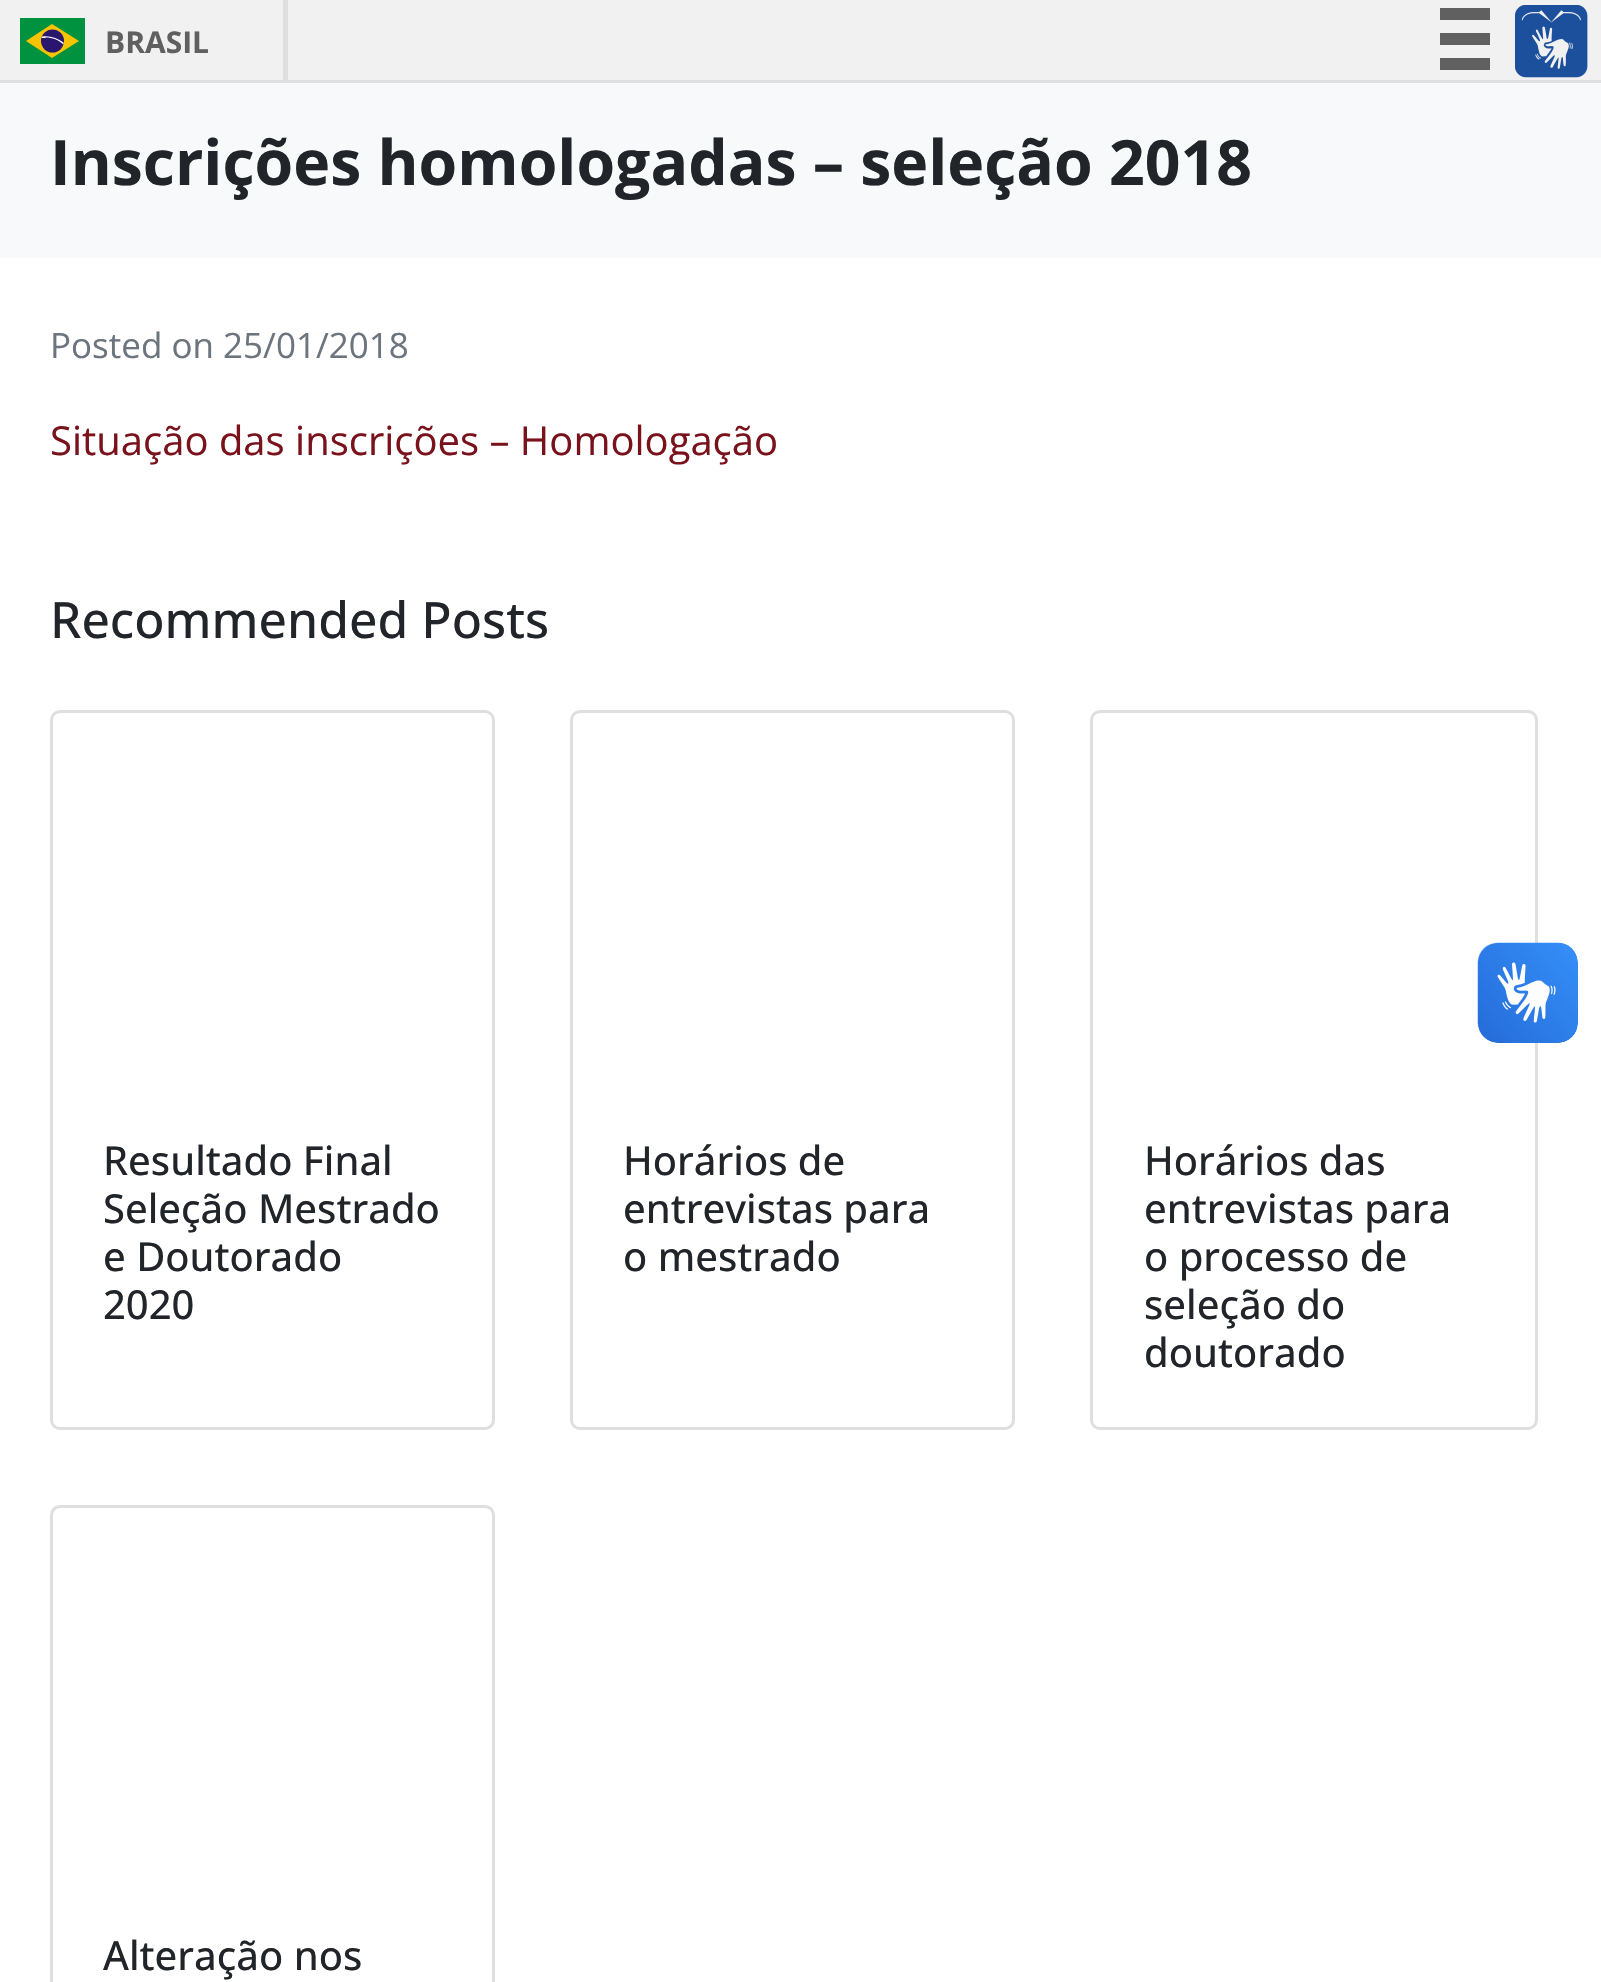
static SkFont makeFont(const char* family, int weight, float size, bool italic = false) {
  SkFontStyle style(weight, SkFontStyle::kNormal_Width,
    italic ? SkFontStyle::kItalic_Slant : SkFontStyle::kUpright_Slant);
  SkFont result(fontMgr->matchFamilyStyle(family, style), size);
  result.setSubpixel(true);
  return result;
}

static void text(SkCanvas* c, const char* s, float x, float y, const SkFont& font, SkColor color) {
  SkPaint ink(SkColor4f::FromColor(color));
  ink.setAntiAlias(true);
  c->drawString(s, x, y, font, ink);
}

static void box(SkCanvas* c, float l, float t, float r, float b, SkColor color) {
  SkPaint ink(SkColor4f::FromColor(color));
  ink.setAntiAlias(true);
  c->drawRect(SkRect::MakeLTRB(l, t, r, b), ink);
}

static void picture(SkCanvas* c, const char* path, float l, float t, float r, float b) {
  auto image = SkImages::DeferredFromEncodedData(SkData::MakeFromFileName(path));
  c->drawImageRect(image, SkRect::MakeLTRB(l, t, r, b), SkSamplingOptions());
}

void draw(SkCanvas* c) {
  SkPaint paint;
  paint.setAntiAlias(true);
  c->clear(0xffffffff);
  box(c, 0, 0, 1601, 80, 0xfff1f1f1);
  box(c, 0, 80, 1601, 83, 0xffdfdfdf);
  box(c, 283, 0, 288, 80, 0xffdfdfdf);
  box(c, 20, 18, 85, 64, 0xff00923f);
  paint.setColor(0xfff8c300);
  c->drawPath(SkPathBuilder().moveTo(52, 24).lineTo(26, 41).lineTo(52, 58).lineTo(79, 41).close().detach(), paint);
  paint.setColor(0xff28166f);
  c->drawCircle(52.5f, 41, 11.5f, paint);
  paint.setColor(0xffffffff);
  c->drawPath(SkPathBuilder().moveTo(45.5f, 37.5f).cubicTo(52.5f, 37.5f, 58.5f, 40, 63.5f, 44.5f).lineTo(63.5f, 42.5f).cubicTo(57.5f, 38, 50, 35.5f, 42, 36.5f).lineTo(41.5f, 38).lineTo(45.5f, 38).close().detach(), paint);
  SkFont face1 = makeFont("Open Sans", 700, 30);
  text(c, "BRASIL", 105, 53, face1, 0xff606060);
  box(c, 1440, 8, 1490, 20, 0xff606060);
  box(c, 1440, 33, 1490, 45, 0xff606060);
  box(c, 1440, 58, 1490, 70, 0xff606060);
  picture(c, "img_01.png", 1515, 5, 1588, 78);
  box(c, 0, 83, 1601, 258, 0xfff8f9fa);
  SkFont face2 = makeFont("Open Sans", 700, 62.5f);
  text(c, "Inscrições homologadas – seleção 2018", 50, 185, face2, 0xff212529);
  SkFont face3 = makeFont("Open Sans", 400, 35);
  text(c, "Posted on 25/01/2018", 50, 358, face3, 0xff6c757d);
  SkFont face4 = makeFont("Open Sans", 400, 40);
  text(c, "Situação das inscrições – Homologação", 50, 455, face4, 0xff7a121c);
  SkFont face5 = makeFont("Open Sans", 500, 50);
  text(c, "Recommended Posts", 50, 638, face5, 0xff212529);
  paint.setStyle(SkPaint::kStroke_Style);
  paint.setStrokeWidth(3);
  paint.setColor(0xffdfdfdf);
  c->drawRoundRect(SkRect::MakeLTRB(51.5f, 711.5f, 493.5f, 1428.5f), 8.5f, 8.5f, paint);
  SkFont face6 = makeFont("Open Sans", 500, 40);
  text(c, "Resultado Final", 103, 1175, face6, 0xff212529);
  text(c, "Seleção Mestrado", 103, 1223, face6, 0xff212529);
  text(c, "e Doutorado", 103, 1271, face6, 0xff212529);
  text(c, "2020", 103, 1319, face6, 0xff212529);
  c->drawRoundRect(SkRect::MakeLTRB(571.5f, 711.5f, 1013.5f, 1428.5f), 8.5f, 8.5f, paint);
  text(c, "Horários de", 623, 1175, face6, 0xff212529);
  text(c, "entrevistas para", 623, 1223, face6, 0xff212529);
  text(c, "o mestrado", 623, 1271, face6, 0xff212529);
  c->drawRoundRect(SkRect::MakeLTRB(1091.5f, 711.5f, 1536.5f, 1428.5f), 8.5f, 8.5f, paint);
  text(c, "Horários das", 1144, 1175, face6, 0xff212529);
  text(c, "entrevistas para", 1144, 1223, face6, 0xff212529);
  text(c, "o processo de", 1144, 1271, face6, 0xff212529);
  text(c, "seleção do", 1144, 1319, face6, 0xff212529);
  text(c, "doutorado", 1144, 1367, face6, 0xff212529);
  c->drawRoundRect(SkRect::MakeLTRB(51.5f, 1506.5f, 493.5f, 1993.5f), 8.5f, 8.5f, paint);
  text(c, "Alteração nos", 103, 1970, face6, 0xff212529);
  picture(c, "img_02.png", 1477, 942, 1578, 1043);
  picture(c, "img_03.png", 1478, 943, 1578, 1043);
}
